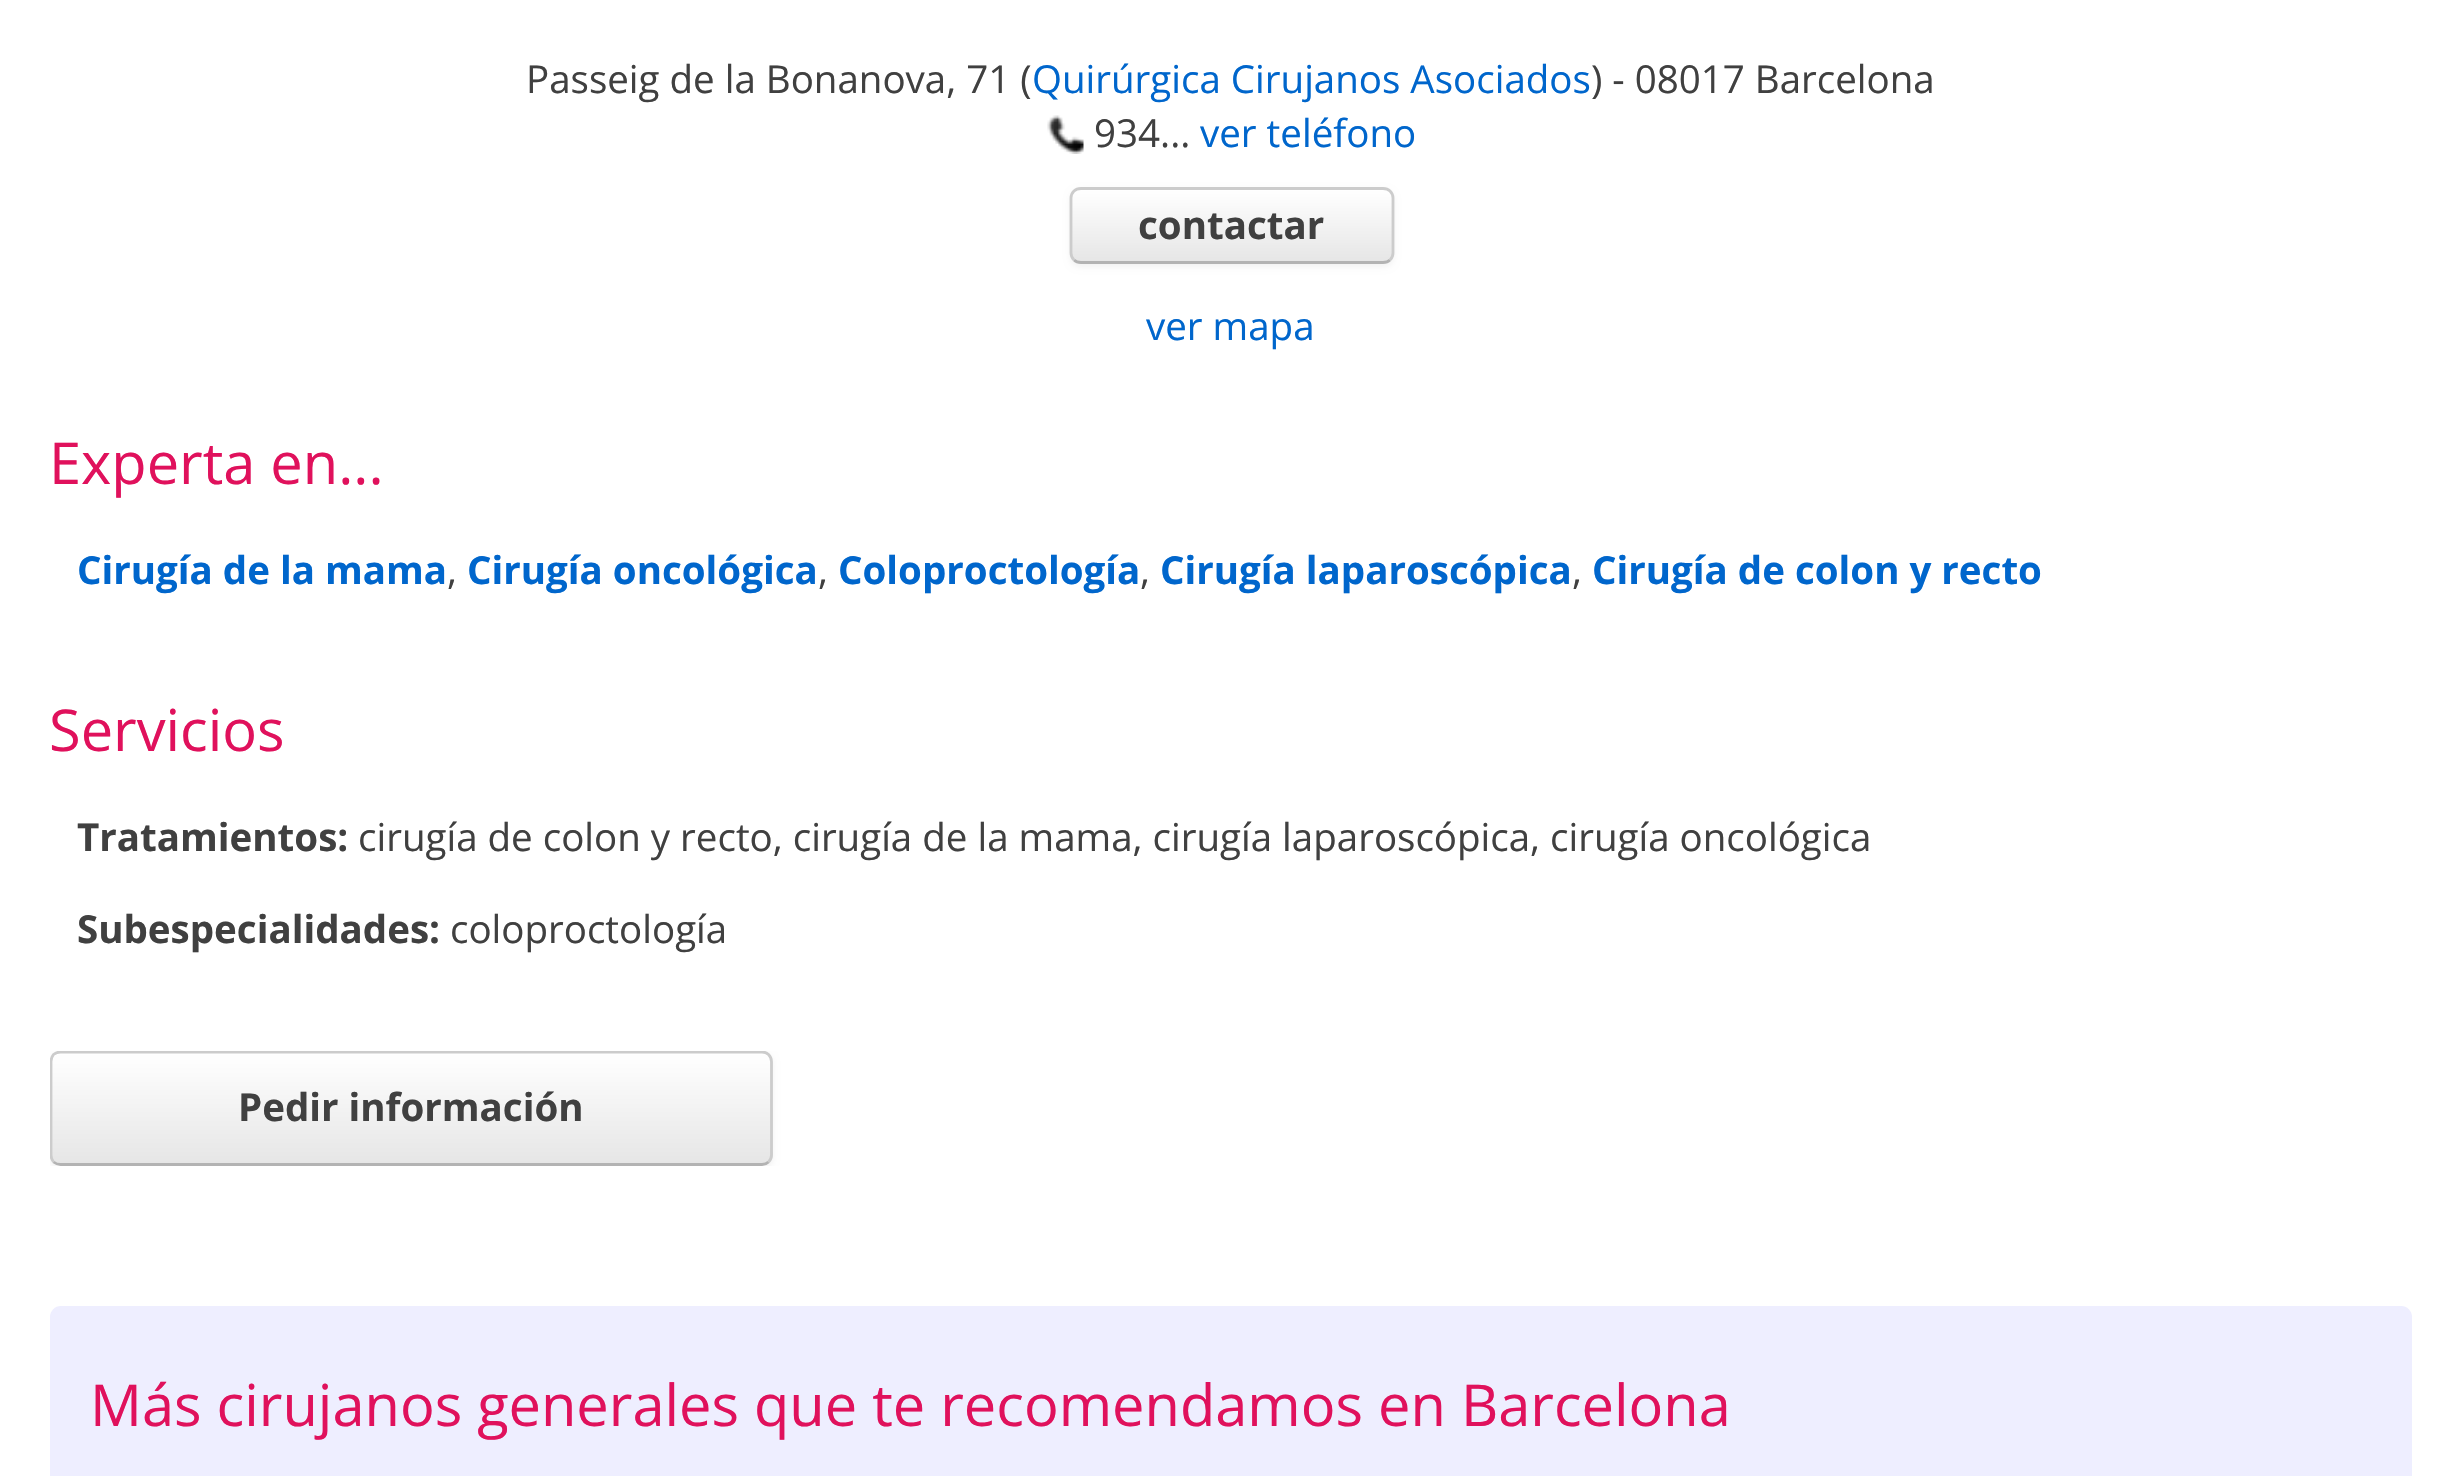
static SkFont makeFont(const char* family, int weight, float size, bool italic = false) {
  SkFontStyle style(weight, SkFontStyle::kNormal_Width,
    italic ? SkFontStyle::kItalic_Slant : SkFontStyle::kUpright_Slant);
  SkFont result(fontMgr->matchFamilyStyle(family, style), size);
  result.setSubpixel(true);
  return result;
}

static void text(SkCanvas* c, const char* s, float x, float y, const SkFont& font, SkColor color) {
  SkPaint ink(SkColor4f::FromColor(color));
  ink.setAntiAlias(true);
  c->drawString(s, x, y, font, ink);
}

static void roundBox(SkCanvas* c, float l, float t, float r, float b, float radius, SkColor color) {
  SkPaint ink(SkColor4f::FromColor(color));
  ink.setAntiAlias(true);
  c->drawRoundRect(SkRect::MakeLTRB(l, t, r, b), radius, radius, ink);
}

static void picture(SkCanvas* c, const char* path, float l, float t, float r, float b) {
  auto image = SkImages::DeferredFromEncodedData(SkData::MakeFromFileName(path));
  c->drawImageRect(image, SkRect::MakeLTRB(l, t, r, b), SkSamplingOptions());
}

void draw(SkCanvas* c) {
  SkPaint paint;
  paint.setAntiAlias(true);
  c->clear(0xffffffff);
  SkFont face1 = makeFont("Open Sans", 400, 38.5f);
  text(c, "Passeig de la Bonanova, 71 (", 526, 93, face1, 0xff404040);
  text(c, "Quirúrgica Cirujanos Asociados", 1032, 93, face1, 0xff0066cc);
  text(c, ") - 08017 Barcelona", 1591, 93, face1, 0xff404040);
  picture(c, "img_01.png", 1047, 115, 1084, 154);
  text(c, "934...", 1094, 147, face1, 0xff404040);
  text(c, "ver teléfono", 1200, 147, face1, 0xff0066cc);
  paint.setColor(0x0d000000);
  paint.setMaskFilter(SkMaskFilter::MakeBlur(kNormal_SkBlurStyle, 3));
  c->drawRoundRect(SkRect::MakeLTRB(1070, 190, 1394, 267), 11, 11, paint);
  paint.setMaskFilter(nullptr);
  c->save();
  c->clipPath(SkPathBuilder().moveTo(1081, 187).lineTo(1383, 187).cubicTo(1389, 187, 1394, 192, 1394, 198).lineTo(1394, 253).cubicTo(1394, 259, 1389, 264, 1383, 264).lineTo(1081, 264).cubicTo(1075, 264, 1070, 259, 1070, 253).lineTo(1070, 198).cubicTo(1070, 192, 1075, 187, 1081, 187).close().detach(), true);
  {
    const SkColor colors[] = {0xffffffff, 0xffe6e6e6};
    const float stops[] = {0, 1};
    const SkPoint ends[] = {{1232, 190}, {1232, 261}};
    paint.setShader(SkGradientShader::MakeLinear(ends, colors, stops, 2, SkTileMode::kClamp));
    paint.setAlpha(255);
  }
  c->drawRect(SkRect::MakeLTRB(1070, 190, 1394, 261), paint);
  c->restore();
  paint.setStyle(SkPaint::kStroke_Style);
  paint.setStrokeWidth(2.8f);
  paint.setShader(nullptr);
  paint.setColor(0xffb3b3b3);
  c->drawPath(SkPathBuilder().moveTo(1390, 260).cubicTo(1388.5f, 261.5f, 1386, 262.5f, 1383, 262.5f).lineTo(1081, 262.5f).cubicTo(1078, 262.5f, 1075.5f, 261.5f, 1074, 260).detach(), paint);
  paint.setColor(0xffcccccc);
  c->drawPath(SkPathBuilder().moveTo(1074, 260).cubicTo(1072, 258, 1071, 255.5f, 1071, 253).lineTo(1071, 198).cubicTo(1071, 195.5f, 1072, 193, 1074, 191).cubicTo(1075.5f, 189.5f, 1078, 188.5f, 1081, 188.5f).lineTo(1383, 188.5f).cubicTo(1386, 188.5f, 1388.5f, 189.5f, 1390, 191).cubicTo(1392, 193, 1393, 195.5f, 1393, 198).lineTo(1393, 253).cubicTo(1393, 255.5f, 1392, 258, 1390, 260).detach(), paint);
  SkFont face2 = makeFont("Open Sans", 700, 38.5f);
  text(c, "contactar", 1138, 239, face2, 0xff404040);
  text(c, "ver mapa", 1146, 340, face1, 0xff0066cc);
  SkFont face3 = makeFont("Open Sans", 400, 57.75f);
  text(c, "Experta en...", 49, 484, face3, 0xffe0115c);
  text(c, "Cirugía de la mama", 77, 584, face2, 0xff0066cc);
  text(c, ",", 447, 584, face1, 0xff404040);
  text(c, "Cirugía oncológica", 467, 584, face2, 0xff0066cc);
  text(c, ",", 818, 584, face1, 0xff404040);
  text(c, "Coloproctología", 838, 584, face2, 0xff0066cc);
  text(c, ",", 1140, 584, face1, 0xff404040);
  text(c, "Cirugía laparoscópica", 1160, 584, face2, 0xff0066cc);
  text(c, ",", 1572, 584, face1, 0xff404040);
  text(c, "Cirugía de colon y recto", 1592, 584, face2, 0xff0066cc);
  text(c, "Servicios", 49, 751, face3, 0xffe0115c);
  text(c, "Tratamientos:", 77, 851, face2, 0xff404040);
  text(c, "cirugía de colon y recto, cirugía de la mama, cirugía laparoscópica, cirugía oncológica", 358, 851, face1, 0xff404040);
  text(c, "Subespecialidades:", 77, 943, face2, 0xff404040);
  text(c, "coloproctología", 450, 943, face1, 0xff404040);
  c->save();
  c->clipRect(SkRect::MakeLTRB(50, 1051, 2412, 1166));
  paint.setStyle(SkPaint::kFill_Style);
  paint.setColor(0x0d000000);
  paint.setMaskFilter(SkMaskFilter::MakeBlur(kNormal_SkBlurStyle, 3));
  c->drawRoundRect(SkRect::MakeLTRB(50, 1053, 773, 1169), 11, 11, paint);
  paint.setMaskFilter(nullptr);
  c->restore();
  c->save();
  c->clipPath(SkPathBuilder().moveTo(61, 1051).lineTo(762, 1051).cubicTo(768, 1051, 773, 1056, 773, 1062).lineTo(773, 1155).cubicTo(773, 1161, 768, 1166, 762, 1166).lineTo(61, 1166).cubicTo(55, 1166, 50, 1161, 50, 1155).lineTo(50, 1062).cubicTo(50, 1056, 55, 1051, 61, 1051).close().detach(), true);
  {
    const SkColor colors[] = {0xffffffff, 0xffe6e6e6};
    const float stops[] = {0, 1};
    const SkPoint ends[] = {{411, 1053}, {411, 1163}};
    paint.setShader(SkGradientShader::MakeLinear(ends, colors, stops, 2, SkTileMode::kClamp));
    paint.setAlpha(255);
  }
  c->drawRect(SkRect::MakeLTRB(50, 1053, 773, 1163), paint);
  c->restore();
  paint.setStyle(SkPaint::kStroke_Style);
  paint.setShader(nullptr);
  paint.setColor(0xffb3b3b3);
  c->drawPath(SkPathBuilder().moveTo(768.5f, 1162).cubicTo(767, 1163.5f, 764.5f, 1164.5f, 762, 1164.5f).lineTo(60.5f, 1164.5f).cubicTo(58, 1164.5f, 55.5f, 1163.5f, 53.5f, 1162).detach(), paint);
  c->save();
  c->clipRect(SkRect::MakeLTRB(50, 1051, 2412, 1166));
  paint.setColor(0xffcccccc);
  c->drawPath(SkPathBuilder().moveTo(53.5f, 1162).cubicTo(52, 1160, 51, 1157.5f, 51, 1155).lineTo(51, 1061.5f).cubicTo(51, 1059, 52, 1056.5f, 53.5f, 1054.5f).cubicTo(55.5f, 1053, 58, 1052, 60.5f, 1052).lineTo(762, 1052).cubicTo(764.5f, 1052, 767, 1053, 768.5f, 1054.5f).cubicTo(770.5f, 1056.5f, 771.5f, 1059, 771.5f, 1061.5f).lineTo(771.5f, 1155).cubicTo(771.5f, 1157.5f, 770.5f, 1160, 768.5f, 1162).detach(), paint);
  c->restore();
  text(c, "Pedir información", 238, 1121, face2, 0xff404040);
  roundBox(c, 50, 1306, 2412, 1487, 11, 0xffeeeeff);
  text(c, "Más cirujanos generales que te recomendamos en Barcelona", 90, 1426, face3, 0xffe0115c);
}
